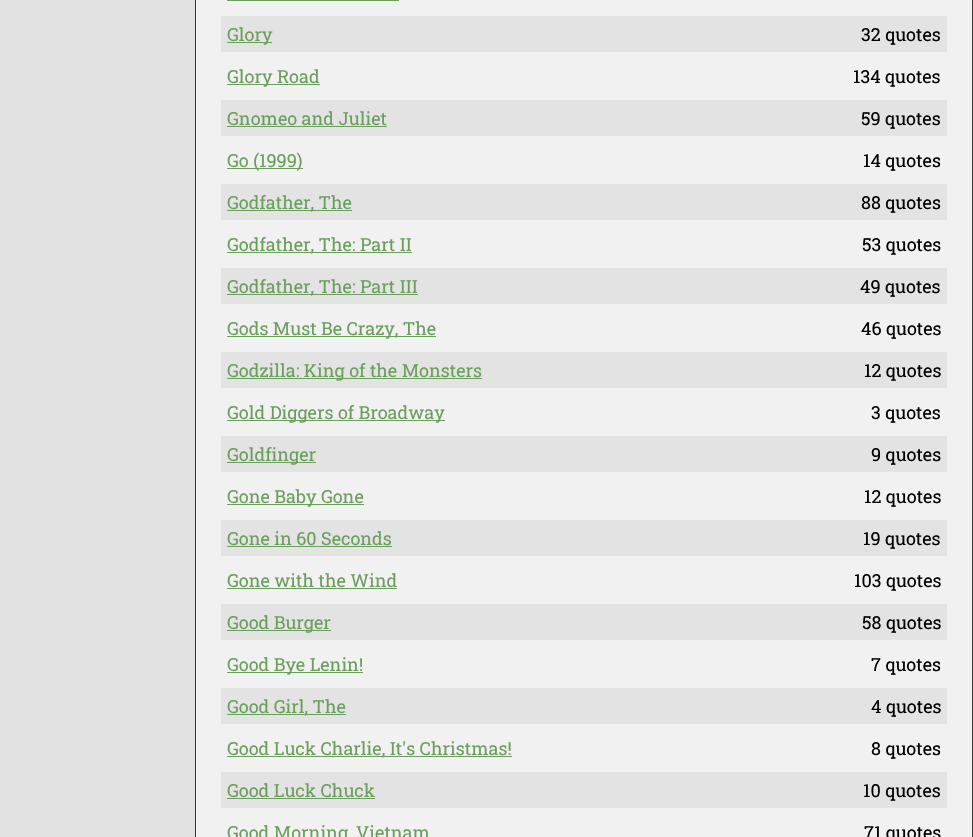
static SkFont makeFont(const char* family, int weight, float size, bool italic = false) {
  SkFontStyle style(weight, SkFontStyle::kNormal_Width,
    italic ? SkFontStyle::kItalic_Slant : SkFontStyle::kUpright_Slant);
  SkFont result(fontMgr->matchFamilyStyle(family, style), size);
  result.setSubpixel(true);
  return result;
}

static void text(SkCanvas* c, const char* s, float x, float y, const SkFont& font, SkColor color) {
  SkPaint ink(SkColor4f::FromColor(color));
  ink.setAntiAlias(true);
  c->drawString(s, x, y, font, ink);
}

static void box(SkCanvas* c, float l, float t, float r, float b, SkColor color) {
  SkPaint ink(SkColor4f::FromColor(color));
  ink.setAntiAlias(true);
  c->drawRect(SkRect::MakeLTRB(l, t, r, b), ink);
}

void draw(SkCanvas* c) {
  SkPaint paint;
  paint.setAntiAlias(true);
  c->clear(0xffe1e1e1);
  box(c, 196, 0, 972, 837, 0xfff1f1f1);
  paint.setColor(0xff333333);
  c->drawPath(SkPathBuilder().moveTo(973, -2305).lineTo(973, 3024).lineTo(972, 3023).lineTo(972, -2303).close().detach(), paint);
  c->drawPath(SkPathBuilder().moveTo(195, 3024).lineTo(195, -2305).lineTo(196, -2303).lineTo(196, 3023).close().detach(), paint);
  box(c, 227, 0, 399, 1, 0xff699f5b);
  box(c, 221, 16, 947, 52, 0xffe3e3e3);
  box(c, 227, 42, 272, 43, 0xff699f5b);
  SkFont face1 = makeFont("Roboto Slab", 400, 18);
  text(c, "Glory", 227, 41, face1, 0xff699f5b);
  text(c, "32 quotes", 861, 41, face1, 0xff000000);
  box(c, 227, 84, 320, 85, 0xff699f5b);
  text(c, "Glory Road", 227, 83, face1, 0xff699f5b);
  text(c, "134 quotes", 853, 83, face1, 0xff000000);
  box(c, 221, 100, 947, 136, 0xffe3e3e3);
  text(c, "Gnomeo and Juliet", 227, 125, face1, 0xff699f5b);
  box(c, 227, 126, 387, 127, 0xff699f5b);
  text(c, "59 quotes", 861, 125, face1, 0xff000000);
  box(c, 227, 168, 303, 169, 0xff699f5b);
  text(c, "Go (1999)", 227, 167, face1, 0xff699f5b);
  text(c, "14 quotes", 863, 167, face1, 0xff000000);
  box(c, 221, 184, 947, 220, 0xffe3e3e3);
  box(c, 227, 210, 352, 211, 0xff699f5b);
  text(c, "Godfather, The", 227, 209, face1, 0xff699f5b);
  text(c, "88 quotes", 861, 209, face1, 0xff000000);
  box(c, 227, 252, 412, 253, 0xff699f5b);
  text(c, "Godfather, The: Part II", 227, 251, face1, 0xff699f5b);
  text(c, "53 quotes", 862, 251, face1, 0xff000000);
  box(c, 221, 268, 947, 304, 0xffe3e3e3);
  box(c, 227, 294, 418, 295, 0xff699f5b);
  text(c, "Godfather, The: Part III", 227, 293, face1, 0xff699f5b);
  text(c, "49 quotes", 860, 293, face1, 0xff000000);
  box(c, 227, 336, 436, 337, 0xff699f5b);
  text(c, "Gods Must Be Crazy, The", 227, 335, face1, 0xff699f5b);
  text(c, "46 quotes", 861, 335, face1, 0xff000000);
  box(c, 221, 352, 947, 388, 0xffe3e3e3);
  box(c, 227, 378, 482, 379, 0xff699f5b);
  text(c, "Godzilla: King of the Monsters", 227, 377, face1, 0xff699f5b);
  text(c, "12 quotes", 864, 377, face1, 0xff000000);
  box(c, 227, 420, 445, 421, 0xff699f5b);
  text(c, "Gold Diggers of Broadway", 227, 419, face1, 0xff699f5b);
  text(c, "3 quotes", 871, 419, face1, 0xff000000);
  box(c, 221, 436, 947, 472, 0xffe3e3e3);
  box(c, 227, 462, 316, 463, 0xff699f5b);
  text(c, "Goldfinger", 227, 461, face1, 0xff699f5b);
  text(c, "9 quotes", 871, 461, face1, 0xff000000);
  box(c, 227, 504, 364, 505, 0xff699f5b);
  text(c, "Gone Baby Gone", 227, 503, face1, 0xff699f5b);
  text(c, "12 quotes", 864, 503, face1, 0xff000000);
  box(c, 221, 520, 947, 556, 0xffe3e3e3);
  text(c, "Gone in 60 Seconds", 227, 545, face1, 0xff699f5b);
  box(c, 227, 546, 392, 547, 0xff699f5b);
  text(c, "19 quotes", 863, 545, face1, 0xff000000);
  text(c, "Gone with the Wind", 227, 587, face1, 0xff699f5b);
  box(c, 227, 588, 397, 589, 0xff699f5b);
  text(c, "103 quotes", 854, 587, face1, 0xff000000);
  box(c, 221, 604, 947, 640, 0xffe3e3e3);
  box(c, 227, 630, 331, 631, 0xff699f5b);
  text(c, "Good Burger", 227, 629, face1, 0xff699f5b);
  text(c, "58 quotes", 862, 629, face1, 0xff000000);
  box(c, 227, 672, 363, 673, 0xff699f5b);
  text(c, "Good Bye Lenin!", 227, 671, face1, 0xff699f5b);
  text(c, "7 quotes", 871, 671, face1, 0xff000000);
  box(c, 221, 688, 947, 724, 0xffe3e3e3);
  box(c, 227, 714, 346, 715, 0xff699f5b);
  text(c, "Good Girl, The", 227, 713, face1, 0xff699f5b);
  text(c, "4 quotes", 871, 713, face1, 0xff000000);
  box(c, 227, 756, 512, 757, 0xff699f5b);
  text(c, "Good Luck Charlie, It's Christmas!", 227, 755, face1, 0xff699f5b);
  text(c, "8 quotes", 871, 755, face1, 0xff000000);
  box(c, 221, 772, 947, 808, 0xffe3e3e3);
  text(c, "Good Luck Chuck", 227, 797, face1, 0xff699f5b);
  box(c, 227, 798, 375, 799, 0xff699f5b);
  text(c, "10 quotes", 863, 797, face1, 0xff000000);
  text(c, "Good Morning, Vietnam", 227, 839, face1, 0xff699f5b);
  text(c, "71 quotes", 864, 839, face1, 0xff000000);
}
